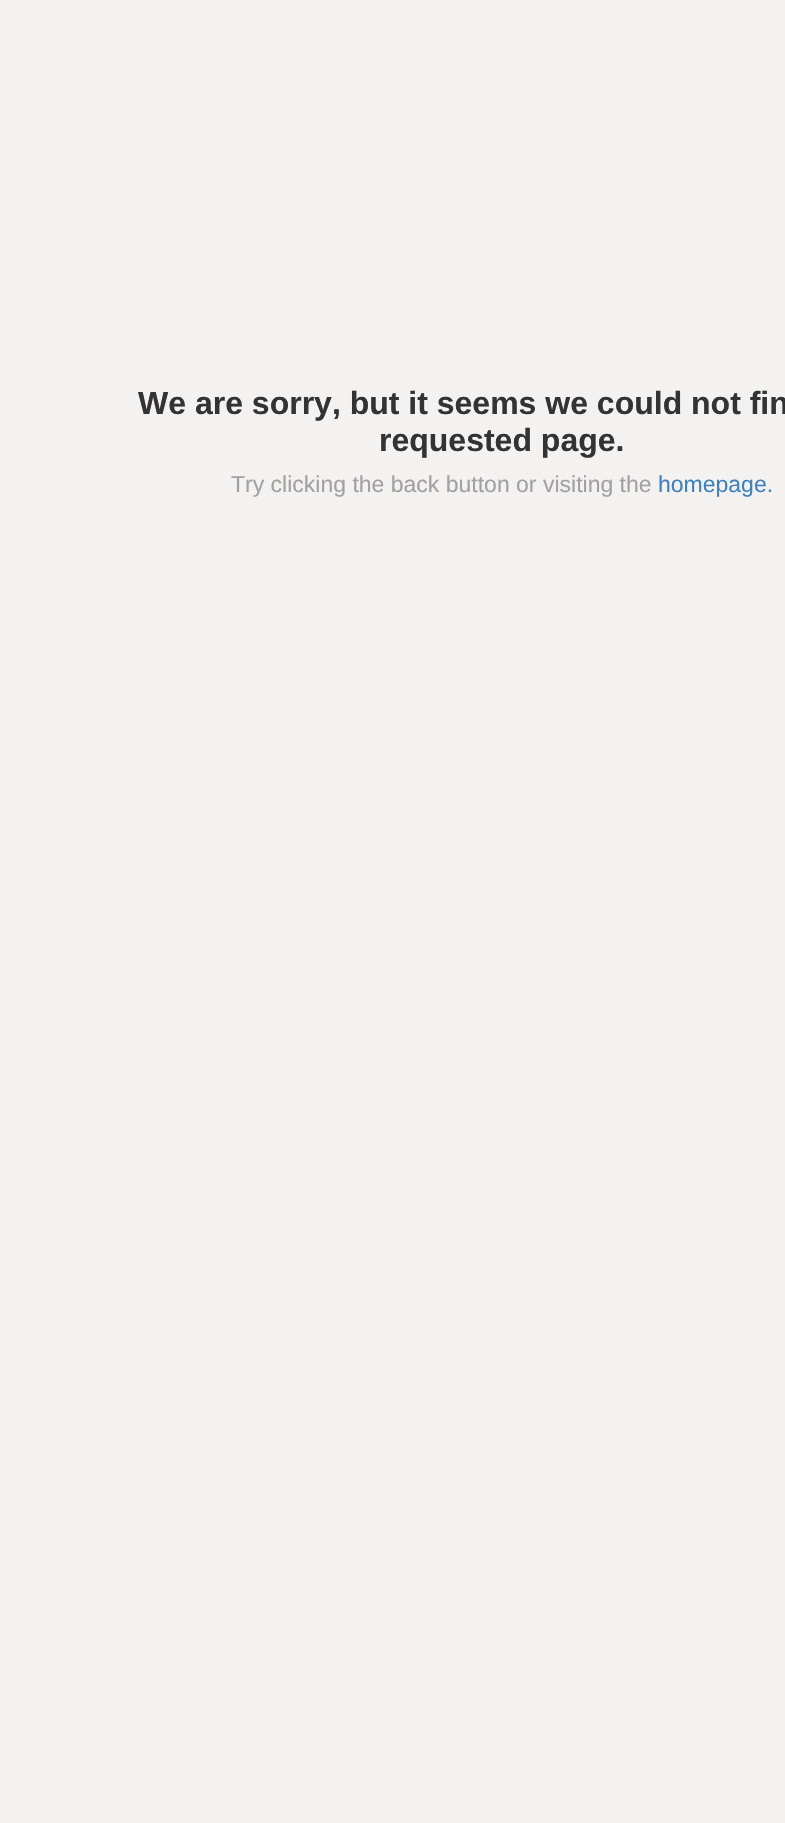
static SkFont makeFont(const char* family, int weight, float size, bool italic = false) {
  SkFontStyle style(weight, SkFontStyle::kNormal_Width,
    italic ? SkFontStyle::kItalic_Slant : SkFontStyle::kUpright_Slant);
  SkFont result(fontMgr->matchFamilyStyle(family, style), size);
  result.setSubpixel(true);
  return result;
}

static void text(SkCanvas* c, const char* s, float x, float y, const SkFont& font, SkColor color) {
  SkPaint ink(SkColor4f::FromColor(color));
  ink.setAntiAlias(true);
  c->drawString(s, x, y, font, ink);
}

void draw(SkCanvas* c) {
  SkPaint paint;
  paint.setAntiAlias(true);
  c->clear(0xfff4f1f1);
  SkFont face1 = makeFont("Liberation Sans", 700, 32);
  text(c, "We are sorry, but it seems we could not fin", 138, 414, face1, 0xff333333);
  text(c, "requested page.", 379, 451, face1, 0xff333333);
  SkFont face2 = makeFont("Liberation Sans", 400, 23);
  text(c, "Try clicking the back button or visiting the", 231, 492, face2, 0xffa2a1a1);
  text(c, "homepage.", 658, 492, face2, 0xff3e81bc);
}
